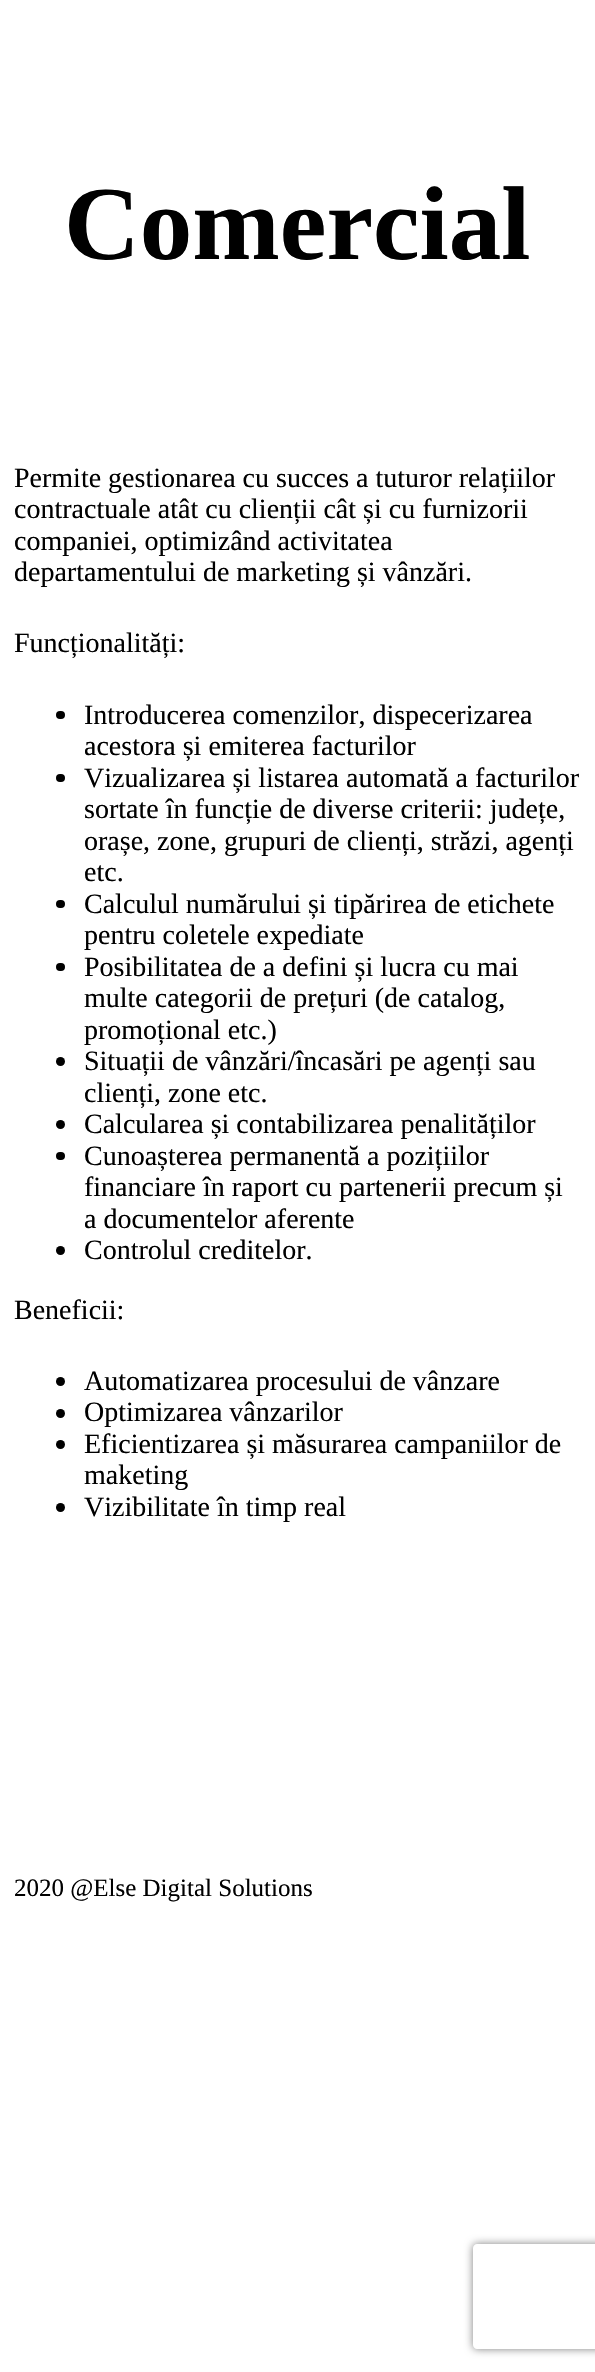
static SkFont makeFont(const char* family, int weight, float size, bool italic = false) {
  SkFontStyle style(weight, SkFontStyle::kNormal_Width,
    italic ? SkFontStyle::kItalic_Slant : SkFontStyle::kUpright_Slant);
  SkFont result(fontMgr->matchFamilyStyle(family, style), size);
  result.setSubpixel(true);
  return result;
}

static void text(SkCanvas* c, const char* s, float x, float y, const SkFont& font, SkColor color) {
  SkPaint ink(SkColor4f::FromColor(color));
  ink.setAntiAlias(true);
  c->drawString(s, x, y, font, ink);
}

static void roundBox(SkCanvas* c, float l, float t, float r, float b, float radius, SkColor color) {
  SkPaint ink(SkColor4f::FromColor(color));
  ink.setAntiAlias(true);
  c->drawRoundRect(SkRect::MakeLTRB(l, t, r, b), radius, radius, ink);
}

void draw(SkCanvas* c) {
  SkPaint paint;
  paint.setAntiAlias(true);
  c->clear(0xffffffff);
  SkFont face1 = makeFont("Liberation Serif", 700, 105);
  text(c, "Comercial", 64, 259, face1, 0xff000000);
  SkFont face2 = makeFont("Liberation Serif", 400, 28);
  text(c, "Permite gestionarea cu succes a tuturor relațiilor", 14, 487, face2, 0xff000000);
  text(c, "contractuale atât cu clienții cât și cu furnizorii", 14, 518, face2, 0xff000000);
  text(c, "companiei, optimizând activitatea", 14, 550, face2, 0xff000000);
  text(c, "departamentului de marketing și vânzări.", 14, 581, face2, 0xff000000);
  text(c, "Funcționalități:", 14, 652, face2, 0xff000000);
  roundBox(c, 56, 711, 65, 719, 4, 0xff000000);
  text(c, "Introducerea comenzilor, dispecerizarea", 84, 724, face2, 0xff000000);
  text(c, "acestora și emiterea facturilor", 84, 755, face2, 0xff000000);
  roundBox(c, 56, 774, 65, 782, 4, 0xff000000);
  text(c, "Vizualizarea și listarea automată a facturilor", 84, 787, face2, 0xff000000);
  text(c, "sortate în funcție de diverse criterii: județe,", 84, 818, face2, 0xff000000);
  text(c, "orașe, zone, grupuri de clienți, străzi, agenți", 84, 850, face2, 0xff000000);
  text(c, "etc.", 84, 881, face2, 0xff000000);
  roundBox(c, 56, 900, 65, 908, 4, 0xff000000);
  text(c, "Calculul numărului și tipărirea de etichete", 84, 913, face2, 0xff000000);
  text(c, "pentru coletele expediate", 84, 944, face2, 0xff000000);
  roundBox(c, 56, 963, 65, 971, 4, 0xff000000);
  text(c, "Posibilitatea de a defini și lucra cu mai", 84, 976, face2, 0xff000000);
  text(c, "multe categorii de prețuri (de catalog,", 84, 1007, face2, 0xff000000);
  text(c, "promoțional etc.)", 84, 1039, face2, 0xff000000);
  paint.setColor(0xff000000);
  c->drawCircle(60.5f, 1061.5f, 4.5f, paint);
  text(c, "Situații de vânzări/încasări pe agenți sau", 84, 1070, face2, 0xff000000);
  text(c, "clienți, zone etc.", 84, 1102, face2, 0xff000000);
  c->drawCircle(60.5f, 1124.5f, 4.5f, paint);
  text(c, "Calcularea și contabilizarea penalităților", 84, 1133, face2, 0xff000000);
  roundBox(c, 56, 1152, 65, 1160, 4, 0xff000000);
  text(c, "Cunoașterea permanentă a pozițiilor", 84, 1165, face2, 0xff000000);
  text(c, "financiare în raport cu partenerii precum și", 84, 1196, face2, 0xff000000);
  text(c, "a documentelor aferente", 84, 1228, face2, 0xff000000);
  c->drawCircle(60.5f, 1250.5f, 4.5f, paint);
  text(c, "Controlul creditelor.", 84, 1259, face2, 0xff000000);
  text(c, "Beneficii:", 14, 1319, face2, 0xff000000);
  c->drawCircle(60.5f, 1381.5f, 4.5f, paint);
  text(c, "Automatizarea procesului de vânzare", 84, 1390, face2, 0xff000000);
  c->drawCircle(60.5f, 1413.5f, 4.5f, paint);
  text(c, "Optimizarea vânzarilor", 84, 1421, face2, 0xff000000);
  c->drawCircle(60.5f, 1444.5f, 4.5f, paint);
  text(c, "Eficientizarea și măsurarea campaniilor de", 84, 1453, face2, 0xff000000);
  text(c, "maketing", 84, 1484, face2, 0xff000000);
  c->drawCircle(60.5f, 1507.5f, 4.5f, paint);
  text(c, "Vizibilitate în timp real", 84, 1516, face2, 0xff000000);
  SkFont face3 = makeFont("Liberation Serif", 400, 25);
  text(c, "2020 @Else Digital Solutions", 14, 1896, face3, 0xff000000);
  c->save();
  c->clipPath(SkPathBuilder(SkPathFillType::kEvenOdd).moveTo(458, 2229).lineTo(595, 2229).lineTo(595, 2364).lineTo(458, 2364).close().moveTo(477, 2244).lineTo(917, 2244).cubicTo(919, 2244, 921, 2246, 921, 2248).lineTo(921, 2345).cubicTo(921, 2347, 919, 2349, 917, 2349).lineTo(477, 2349).cubicTo(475, 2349, 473, 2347, 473, 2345).lineTo(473, 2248).cubicTo(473, 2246, 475, 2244, 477, 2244).close().detach(), true);
  paint.setColor(0xff808080);
  paint.setMaskFilter(SkMaskFilter::MakeBlur(kNormal_SkBlurStyle, 4.5f));
  c->drawRoundRect(SkRect::MakeLTRB(473, 2244, 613, 2349), 4, 4, paint);
  paint.setMaskFilter(nullptr);
  c->restore();
}
